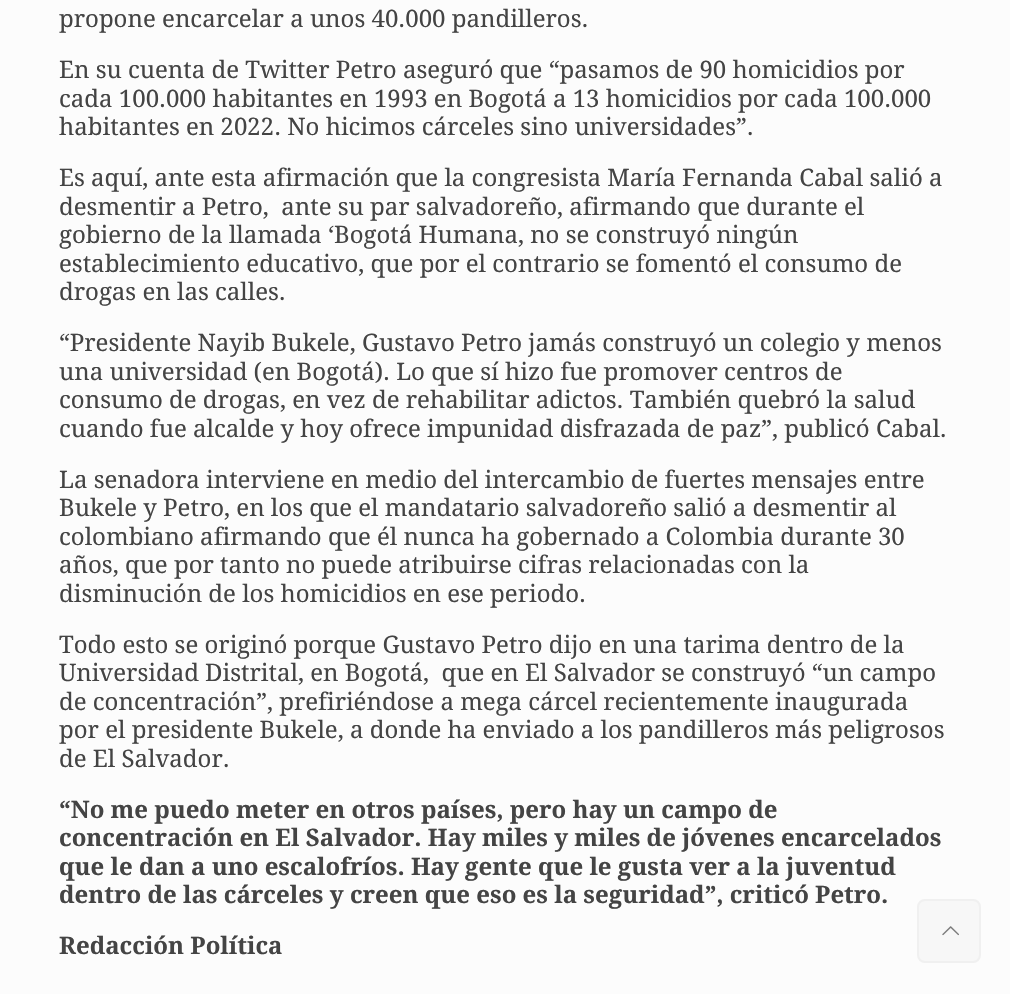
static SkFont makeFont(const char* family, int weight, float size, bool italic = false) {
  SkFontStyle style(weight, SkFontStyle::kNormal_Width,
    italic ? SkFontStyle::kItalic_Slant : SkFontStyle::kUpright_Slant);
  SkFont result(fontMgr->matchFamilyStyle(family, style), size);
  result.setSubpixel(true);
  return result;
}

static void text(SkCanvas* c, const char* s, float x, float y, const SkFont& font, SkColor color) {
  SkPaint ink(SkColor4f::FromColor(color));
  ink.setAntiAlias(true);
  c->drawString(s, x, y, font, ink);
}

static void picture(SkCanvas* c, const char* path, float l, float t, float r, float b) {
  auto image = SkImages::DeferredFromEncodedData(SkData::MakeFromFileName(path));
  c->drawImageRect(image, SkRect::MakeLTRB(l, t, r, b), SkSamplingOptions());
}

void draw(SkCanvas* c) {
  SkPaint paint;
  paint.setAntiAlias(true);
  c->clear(0xfffcfcfc);
  SkFont face1 = makeFont("Droid Serif", 400, 24);
  text(c, "propone encarcelar a unos 40.000 pandilleros.", 59, 27, face1, 0xff444444);
  text(c, "En su cuenta de Twitter Petro aseguró que “pasamos de 90 homicidios por", 59, 78, face1, 0xff444444);
  text(c, "cada 100.000 habitantes en 1993 en Bogotá a 13 homicidios por cada 100.000", 59, 107, face1, 0xff444444);
  text(c, "habitantes en 2022. No hicimos cárceles sino universidades”.", 59, 135, face1, 0xff444444);
  text(c, "Es aquí, ante esta afirmación que la congresista María Fernanda Cabal salió a", 59, 186, face1, 0xff444444);
  text(c, "desmentir a Petro,  ante su par salvadoreño, afirmando que durante el", 59, 215, face1, 0xff444444);
  text(c, "gobierno de la llamada ‘Bogotá Humana, no se construyó ningún", 59, 243, face1, 0xff444444);
  text(c, "establecimiento educativo, que por el contrario se fomentó el consumo de", 59, 272, face1, 0xff444444);
  text(c, "drogas en las calles.", 59, 300, face1, 0xff444444);
  text(c, "“Presidente Nayib Bukele, Gustavo Petro jamás construyó un colegio y menos", 59, 351, face1, 0xff444444);
  text(c, "una universidad (en Bogotá). Lo que sí hizo fue promover centros de", 59, 380, face1, 0xff444444);
  text(c, "consumo de drogas, en vez de rehabilitar adictos. También quebró la salud", 59, 408, face1, 0xff444444);
  text(c, "cuando fue alcalde y hoy ofrece impunidad disfrazada de paz”, publicó Cabal.", 59, 437, face1, 0xff444444);
  text(c, "La senadora interviene en medio del intercambio de fuertes mensajes entre", 59, 488, face1, 0xff444444);
  text(c, "Bukele y Petro, en los que el mandatario salvadoreño salió a desmentir al", 59, 516, face1, 0xff444444);
  text(c, "colombiano afirmando que él nunca ha gobernado a Colombia durante 30", 59, 545, face1, 0xff444444);
  text(c, "años, que por tanto no puede atribuirse cifras relacionadas con la", 59, 573, face1, 0xff444444);
  text(c, "disminución de los homicidios en ese periodo.", 59, 602, face1, 0xff444444);
  text(c, "Todo esto se originó porque Gustavo Petro dijo en una tarima dentro de la", 59, 653, face1, 0xff444444);
  text(c, "Universidad Distrital, en Bogotá,  que en El Salvador se construyó “un campo", 59, 681, face1, 0xff444444);
  text(c, "de concentración”, prefiriéndose a mega cárcel recientemente inaugurada", 59, 710, face1, 0xff444444);
  text(c, "por el presidente Bukele, a donde ha enviado a los pandilleros más peligrosos", 59, 738, face1, 0xff444444);
  text(c, "de El Salvador.", 59, 767, face1, 0xff444444);
  SkFont face2 = makeFont("Droid Serif", 700, 24);
  text(c, "“No me puedo meter en otros países, pero hay un campo de", 59, 818, face2, 0xff444444);
  text(c, "concentración en El Salvador. Hay miles y miles de jóvenes encarcelados", 59, 846, face2, 0xff444444);
  text(c, "que le dan a uno escalofríos. Hay gente que le gusta ver a la juventud", 59, 875, face2, 0xff444444);
  text(c, "dentro de las cárceles y creen que eso es la seguridad”, criticó Petro.", 59, 903, face2, 0xff444444);
  text(c, "Redacción Política", 59, 954, face2, 0xff444444);
  paint.setColor(0xfff7f7f7);
  c->drawRoundRect(SkRect::MakeLTRB(918, 900, 980, 962), 7, 7, paint);
  paint.setStyle(SkPaint::kStroke_Style);
  paint.setStrokeWidth(2);
  paint.setColor(0xfff0f0f0);
  c->drawRoundRect(SkRect::MakeLTRB(918, 900, 980, 962), 7, 7, paint);
  picture(c, "img_01.png", 942, 926, 959, 936);
}
